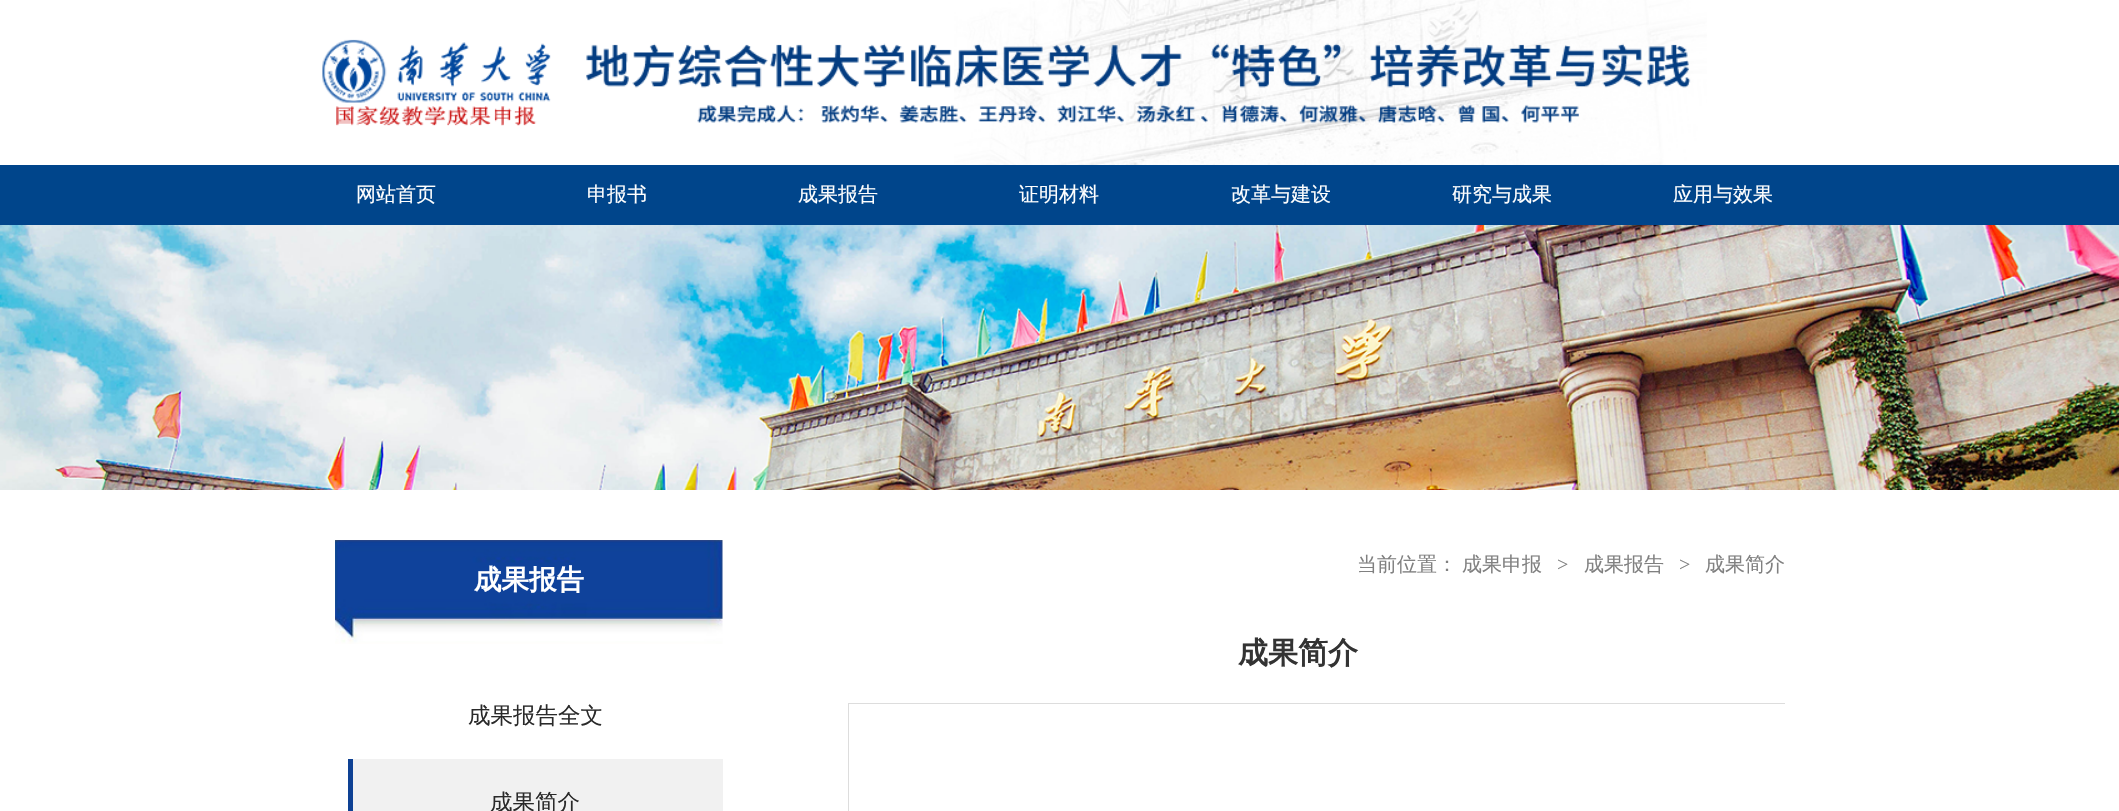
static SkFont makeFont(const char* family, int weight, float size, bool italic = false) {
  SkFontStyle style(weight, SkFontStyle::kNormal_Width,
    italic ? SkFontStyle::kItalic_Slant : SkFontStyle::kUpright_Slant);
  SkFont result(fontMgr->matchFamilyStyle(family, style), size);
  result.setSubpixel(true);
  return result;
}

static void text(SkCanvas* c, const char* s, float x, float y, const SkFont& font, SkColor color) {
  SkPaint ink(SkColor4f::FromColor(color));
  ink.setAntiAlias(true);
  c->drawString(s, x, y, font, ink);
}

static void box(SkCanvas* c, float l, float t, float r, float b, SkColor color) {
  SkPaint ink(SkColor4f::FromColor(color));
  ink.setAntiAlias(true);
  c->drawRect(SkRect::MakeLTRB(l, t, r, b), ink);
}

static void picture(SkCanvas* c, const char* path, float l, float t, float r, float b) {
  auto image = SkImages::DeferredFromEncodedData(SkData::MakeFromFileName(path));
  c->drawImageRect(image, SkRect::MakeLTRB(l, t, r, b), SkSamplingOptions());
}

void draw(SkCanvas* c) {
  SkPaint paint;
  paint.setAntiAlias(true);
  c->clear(0xffffffff);
  picture(c, "img_01.png", 954, 0, 1707, 165);
  picture(c, "img_02.png", 322, 39, 1691, 126);
  box(c, 0, 165, 2119, 225, 0xff00458b);
  SkFont face1 = makeFont("WenQuanYi Zen Hei", 500, 20);
  text(c, "网站首页", 356, 201, face1, 0xffffffff);
  text(c, "申报书", 587, 201, face1, 0xffffffff);
  text(c, "成果报告", 798, 201, face1, 0xffffffff);
  text(c, "证明材料", 1019, 201, face1, 0xffffffff);
  text(c, "改革与建设", 1231, 201, face1, 0xffffffff);
  text(c, "研究与成果", 1452, 201, face1, 0xffffffff);
  text(c, "应用与效果", 1673, 201, face1, 0xffffffff);
  picture(c, "img_03.png", 0, 225, 2119, 490);
  text(c, "当前位置：", 1357, 571, face1, 0xff808080);
  text(c, "成果申报", 1462, 571, face1, 0xff808080);
  SkFont face2 = makeFont("Liberation Serif", 400, 20);
  text(c, ">", 1557, 571, face2, 0xff808080);
  text(c, "成果报告", 1584, 571, face1, 0xff808080);
  text(c, ">", 1679, 571, face2, 0xff808080);
  text(c, "成果简介", 1705, 571, face1, 0xff808080);
  picture(c, "img_04.png", 335, 540, 723, 644);
  SkFont face3 = makeFont("WenQuanYi Zen Hei", 700, 27.5f);
  text(c, "成果报告", 474, 589, face3, 0xffffffff);
  SkFont face4 = makeFont("WenQuanYi Zen Hei", 500, 22.5f);
  text(c, "成果报告全文", 468, 723, face4, 0xff2a2a2a);
  box(c, 353, 759, 723, 811, 0xfff1f1f1);
  box(c, 348, 759, 353, 811, 0xff0e4194);
  text(c, "成果简介", 490, 810, face4, 0xff2a2a2a);
  SkFont face5 = makeFont("WenQuanYi Zen Hei", 700, 30);
  text(c, "成果简介", 1238, 663, face5, 0xff333333);
  c->save();
  c->clipRect(SkRect::MakeLTRB(335, 540, 1785, 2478));
  paint.setStyle(SkPaint::kStroke_Style);
  paint.setStrokeWidth(1);
  paint.setColor(0xffdddddd);
  c->drawRect(SkRect::MakeLTRB(848.5f, 703.5f, 1849.5f, 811.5f), paint);
  c->restore();
}
